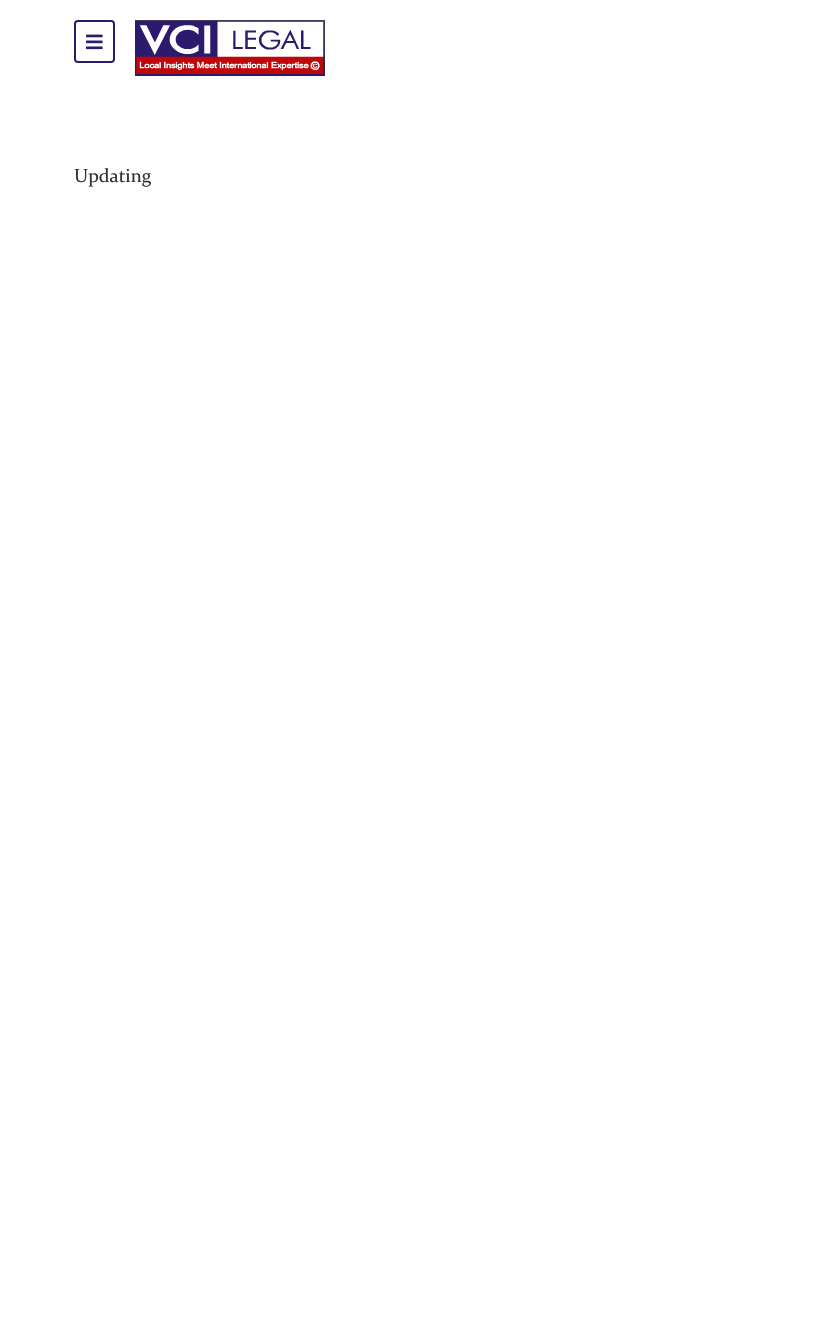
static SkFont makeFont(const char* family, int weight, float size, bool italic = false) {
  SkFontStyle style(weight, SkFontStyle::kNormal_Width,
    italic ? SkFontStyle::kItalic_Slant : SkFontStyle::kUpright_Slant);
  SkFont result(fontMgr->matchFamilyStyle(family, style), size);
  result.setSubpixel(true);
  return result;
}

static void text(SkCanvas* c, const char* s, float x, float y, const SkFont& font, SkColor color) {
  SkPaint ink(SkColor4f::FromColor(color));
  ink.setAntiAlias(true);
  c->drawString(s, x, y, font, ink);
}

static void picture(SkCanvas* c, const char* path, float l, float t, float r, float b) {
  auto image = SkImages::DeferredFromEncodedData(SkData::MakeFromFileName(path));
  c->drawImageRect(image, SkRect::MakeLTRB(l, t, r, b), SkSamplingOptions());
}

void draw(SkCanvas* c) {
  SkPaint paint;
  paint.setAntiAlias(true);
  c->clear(0xffffffff);
  paint.setStyle(SkPaint::kStroke_Style);
  paint.setStrokeWidth(2);
  paint.setColor(0xff2c1b6c);
  c->drawRoundRect(SkRect::MakeLTRB(75, 21, 114, 62), 3, 3, paint);
  picture(c, "img_01.png", 86, 34, 103, 50);
  picture(c, "img_02.png", 135, 20, 325, 76);
  SkFont face1 = makeFont("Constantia", 400, 19);
  text(c, "Updating", 74, 182, face1, 0xff333333);
}
